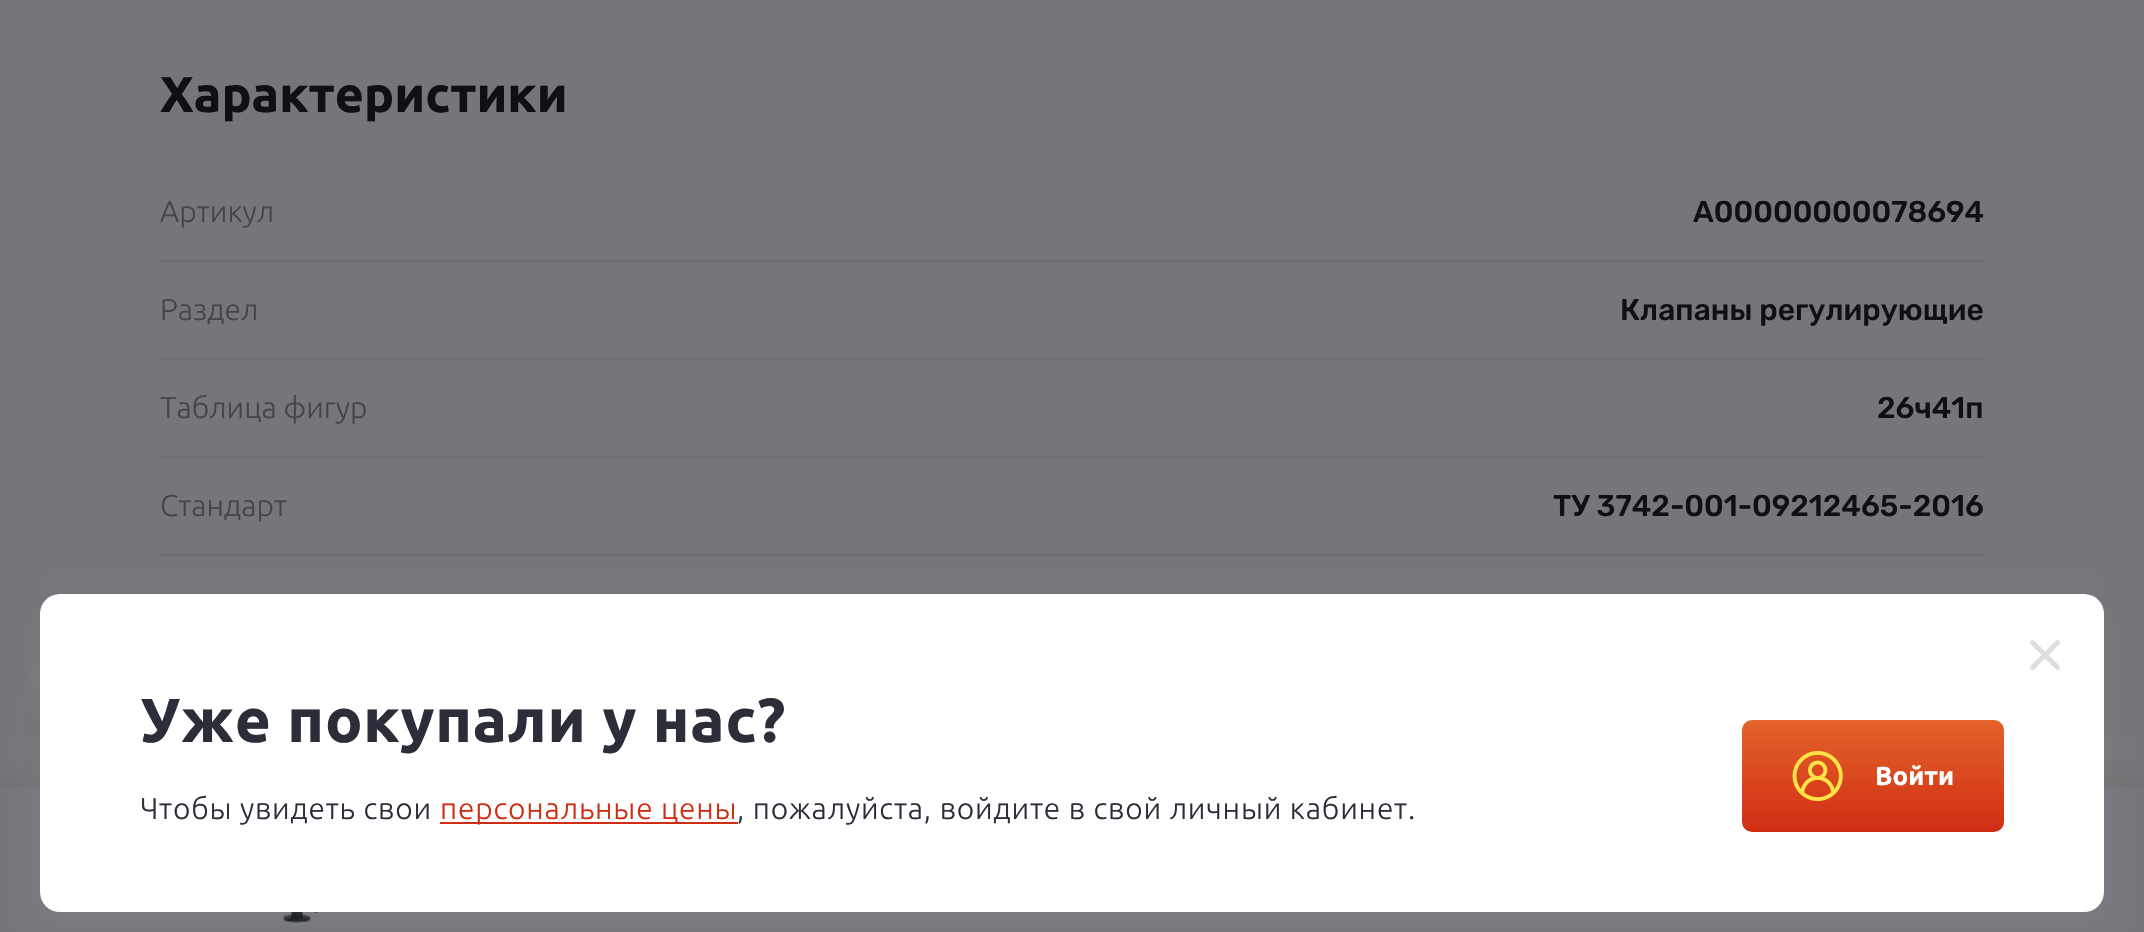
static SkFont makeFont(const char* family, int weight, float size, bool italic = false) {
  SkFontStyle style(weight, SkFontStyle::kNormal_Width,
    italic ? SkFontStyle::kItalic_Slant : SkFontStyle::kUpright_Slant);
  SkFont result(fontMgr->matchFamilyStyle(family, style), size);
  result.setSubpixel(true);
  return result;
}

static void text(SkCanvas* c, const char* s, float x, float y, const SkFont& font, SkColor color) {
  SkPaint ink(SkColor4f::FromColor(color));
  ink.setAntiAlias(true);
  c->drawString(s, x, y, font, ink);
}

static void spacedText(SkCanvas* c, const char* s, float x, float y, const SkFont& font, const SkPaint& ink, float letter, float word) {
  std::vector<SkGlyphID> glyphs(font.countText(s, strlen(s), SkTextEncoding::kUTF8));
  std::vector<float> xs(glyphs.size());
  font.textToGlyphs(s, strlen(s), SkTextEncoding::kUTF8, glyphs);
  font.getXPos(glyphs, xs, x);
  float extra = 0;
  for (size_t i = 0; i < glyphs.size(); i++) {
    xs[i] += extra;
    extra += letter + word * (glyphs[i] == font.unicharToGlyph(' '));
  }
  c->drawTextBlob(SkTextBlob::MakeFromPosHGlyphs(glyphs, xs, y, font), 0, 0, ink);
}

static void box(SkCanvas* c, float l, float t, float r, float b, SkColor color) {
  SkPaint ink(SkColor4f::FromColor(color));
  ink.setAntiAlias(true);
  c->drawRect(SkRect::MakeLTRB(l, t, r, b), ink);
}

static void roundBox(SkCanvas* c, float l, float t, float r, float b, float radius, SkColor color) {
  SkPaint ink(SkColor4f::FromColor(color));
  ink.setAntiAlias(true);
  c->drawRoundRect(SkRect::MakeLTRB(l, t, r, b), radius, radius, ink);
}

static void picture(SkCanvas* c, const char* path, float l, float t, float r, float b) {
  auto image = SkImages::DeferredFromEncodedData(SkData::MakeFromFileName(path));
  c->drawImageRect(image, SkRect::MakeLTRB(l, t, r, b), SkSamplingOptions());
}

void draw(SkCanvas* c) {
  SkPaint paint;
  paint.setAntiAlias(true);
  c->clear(0xff737578);
  roundBox(c, 40, -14, 2104, 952, 20, 0xff74767c);
  SkFont face1 = makeFont("Ubuntu", 700, 50);
  text(c, "Характеристики", 160, 112, face1, 0xff0e1016);
  box(c, 160, 260, 1984, 262, 0xff6d6f75);
  SkFont face2 = makeFont("Ubuntu", 300, 30);
  text(c, "Артикул", 160, 222, face2, 0xff43454b);
  SkFont face3 = makeFont("Rubik", 500, 30);
  text(c, "A00000000078694", 1693, 222, face3, 0xff0e1016);
  box(c, 160, 358, 1984, 360, 0xff6d6f75);
  text(c, "Раздел", 160, 320, face2, 0xff43454b);
  text(c, "Клапаны регулирующие", 1620, 320, face3, 0xff0e1016);
  box(c, 160, 456, 1984, 458, 0xff6d6f75);
  text(c, "Таблица фигур", 160, 418, face2, 0xff43454b);
  text(c, "26ч41п", 1877, 418, face3, 0xff0e1016);
  box(c, 160, 554, 1984, 556, 0xff6d6f75);
  text(c, "Стандарт", 160, 516, face2, 0xff43454b);
  text(c, "ТУ 3742-001-09212465-2016", 1553, 516, face3, 0xff0e1016);
  paint.setColor(0x33322b1b);
  paint.setMaskFilter(SkMaskFilter::MakeBlur(kNormal_SkBlurStyle, 20));
  c->drawRect(SkRect::MakeLTRB(0, 798, 2144, 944), paint);
  paint.setMaskFilter(nullptr);
  box(c, 0, 786, 2144, 932, 0xff74767c);
  picture(c, "img_01.png", 273, 912, 321, 923);
  paint.setColor(0x4d1f2031);
  paint.setMaskFilter(SkMaskFilter::MakeBlur(kNormal_SkBlurStyle, 21));
  c->drawRoundRect(SkRect::MakeLTRB(60, 682, 170, 792), 55, 55, paint);
  paint.setMaskFilter(nullptr);
  paint.setColor(0x24adadad);
  paint.setMaskFilter(SkMaskFilter::MakeBlur(kNormal_SkBlurStyle, 14));
  c->drawRoundRect(SkRect::MakeLTRB(40, 604, 2104, 922), 20, 20, paint);
  paint.setMaskFilter(nullptr);
  roundBox(c, 40, 594, 2104, 912, 20, 0xffffffff);
  picture(c, "img_02.png", 2030, 640, 2060, 670);
  SkFont face4 = makeFont("Ubuntu", 700, 62);
  paint.setColor(0xff2b2e38);
  spacedText(c, "Уже покупали у нас?", 140, 742, face4, paint, 0.8f, 0);
  spacedText(c, "Чтобы увидеть свои", 140, 819, face2, paint, 0.8f, 0);
  box(c, 440, 822, 738, 824, 0xffcf2c12);
  paint.setColor(0xffcf2c12);
  spacedText(c, "персональные цены", 440, 819, face2, paint, 0.8f, 0);
  paint.setColor(0xff2b2e38);
  spacedText(c, ", пожалуйста, войдите в свой личный кабинет.", 737, 819, face2, paint, 0.8f, 0);
  {
    const SkColor colors[] = {0xffe3642a, 0xffd02d13};
    const float stops[] = {0, 1};
    const SkPoint ends[] = {{1873, 720}, {1873, 832}};
    paint.setShader(SkGradientShader::MakeLinear(ends, colors, stops, 2, SkTileMode::kClamp));
    paint.setAlpha(255);
  }
  c->drawRoundRect(SkRect::MakeLTRB(1742, 720, 2004, 832), 10, 10, paint);
  picture(c, "img_03.png", 1792, 751, 1843, 801);
  SkFont face5 = makeFont("Ubuntu", 700, 26);
  text(c, "Войти", 1875, 785, face5, 0xffffffff);
}
